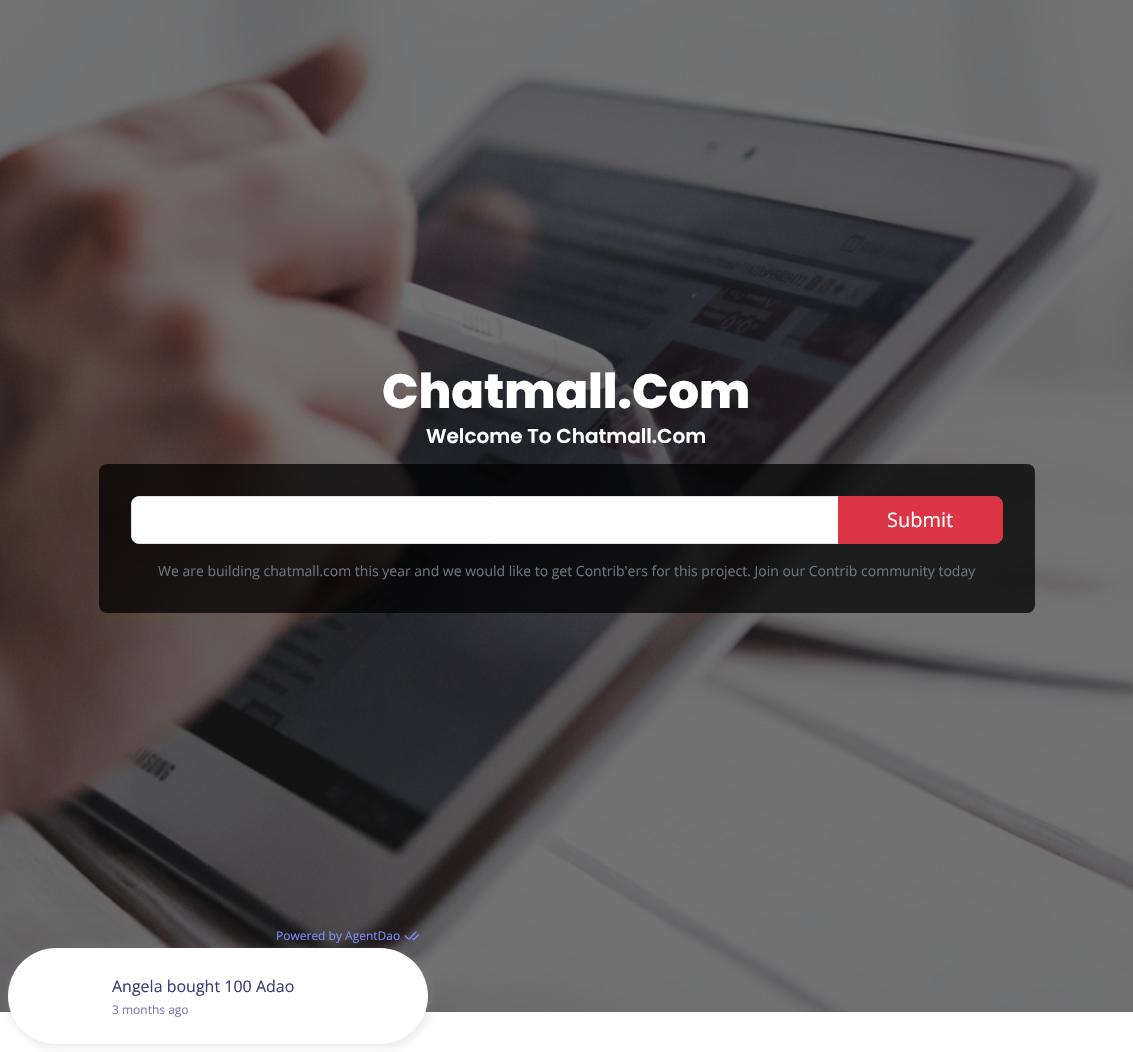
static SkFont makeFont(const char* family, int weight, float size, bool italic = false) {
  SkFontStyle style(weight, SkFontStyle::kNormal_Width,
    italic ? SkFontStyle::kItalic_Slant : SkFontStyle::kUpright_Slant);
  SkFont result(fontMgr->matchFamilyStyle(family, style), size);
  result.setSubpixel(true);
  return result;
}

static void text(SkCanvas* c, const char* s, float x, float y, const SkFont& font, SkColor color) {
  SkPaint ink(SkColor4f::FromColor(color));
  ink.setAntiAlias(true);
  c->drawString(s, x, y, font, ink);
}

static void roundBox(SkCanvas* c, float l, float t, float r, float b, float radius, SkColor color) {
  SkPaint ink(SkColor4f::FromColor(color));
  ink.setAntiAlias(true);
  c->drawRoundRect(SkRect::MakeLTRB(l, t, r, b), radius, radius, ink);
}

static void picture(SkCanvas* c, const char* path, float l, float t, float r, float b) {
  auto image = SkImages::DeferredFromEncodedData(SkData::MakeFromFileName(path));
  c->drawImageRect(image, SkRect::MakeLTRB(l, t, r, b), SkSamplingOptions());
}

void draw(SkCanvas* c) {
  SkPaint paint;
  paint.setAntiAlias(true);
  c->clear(0xffffffff);
  picture(c, "img_01.png", 0, 0, 1133, 1012);
  SkFont face1 = makeFont("Poppins", 800, 48);
  text(c, "Chatmall.Com", 382, 408, face1, 0xffffffff);
  SkFont face2 = makeFont("Poppins", 600, 20);
  text(c, "Welcome To Chatmall.Com", 426, 443, face2, 0xffffffff);
  roundBox(c, 99, 464, 1035, 613, 8, 0xbf000000);
  paint.setColor(0xffffffff);
  c->drawPath(SkPathBuilder().moveTo(139, 496.5f).lineTo(838.5f, 496.5f).lineTo(838.5f, 543.5f).lineTo(139, 543.5f).cubicTo(135, 543.5f, 131.5f, 540, 131.5f, 536).lineTo(131.5f, 504).cubicTo(131.5f, 500, 135, 496.5f, 139, 496.5f).close().detach(), paint);
  paint.setStyle(SkPaint::kStroke_Style);
  paint.setStrokeWidth(1);
  paint.setColor(0xffdee2e6);
  c->drawPath(SkPathBuilder().moveTo(139, 496.5f).lineTo(838.5f, 496.5f).lineTo(838.5f, 543.5f).lineTo(139, 543.5f).cubicTo(135, 543.5f, 131.5f, 540, 131.5f, 536).lineTo(131.5f, 504).cubicTo(131.5f, 500, 135, 496.5f, 139, 496.5f).close().detach(), paint);
  paint.setStyle(SkPaint::kFill_Style);
  paint.setColor(0xffdc3545);
  c->drawPath(SkPathBuilder().moveTo(838.5f, 496.5f).lineTo(995, 496.5f).cubicTo(999, 496.5f, 1002.5f, 500, 1002.5f, 504).lineTo(1002.5f, 536).cubicTo(1002.5f, 540, 999, 543.5f, 995, 543.5f).lineTo(838.5f, 543.5f).close().detach(), paint);
  paint.setStyle(SkPaint::kStroke_Style);
  c->drawPath(SkPathBuilder().moveTo(838.5f, 496.5f).lineTo(995, 496.5f).cubicTo(999, 496.5f, 1002.5f, 500, 1002.5f, 504).lineTo(1002.5f, 536).cubicTo(1002.5f, 540, 999, 543.5f, 995, 543.5f).lineTo(838.5f, 543.5f).close().detach(), paint);
  SkFont face3 = makeFont("Open Sans", 400, 20);
  text(c, "Submit", 887, 527, face3, 0xffffffff);
  SkFont face4 = makeFont("Open Sans", 400, 14);
  text(c, "We are building chatmall.com this year and we would like to get Contrib'ers for this project. Join our Contrib community today", 158, 576, face4, 0xff6c757d);
  paint.setStyle(SkPaint::kFill_Style);
  paint.setColor(0x33999999);
  paint.setMaskFilter(SkMaskFilter::MakeBlur(kNormal_SkBlurStyle, 5));
  c->drawRoundRect(SkRect::MakeLTRB(8, 948, 432, 1048), 50, 50, paint);
  paint.setMaskFilter(nullptr);
  roundBox(c, 8, 948, 428, 1044, 48, 0xffffffff);
  SkFont face5 = makeFont("Open Sans", 400, 12);
  text(c, "Powered by AgentDao", 276, 940, face5, 0xff818cf8);
  picture(c, "img_02.png", 404, 931, 420, 941);
  SkFont face6 = makeFont("Open Sans", 400, 16);
  text(c, "Angela bought 100 Adao", 112, 992, face6, 0xff3a3a7c);
  text(c, "3 months ago", 112, 1014, face5, 0xff7b7bb0);
}
